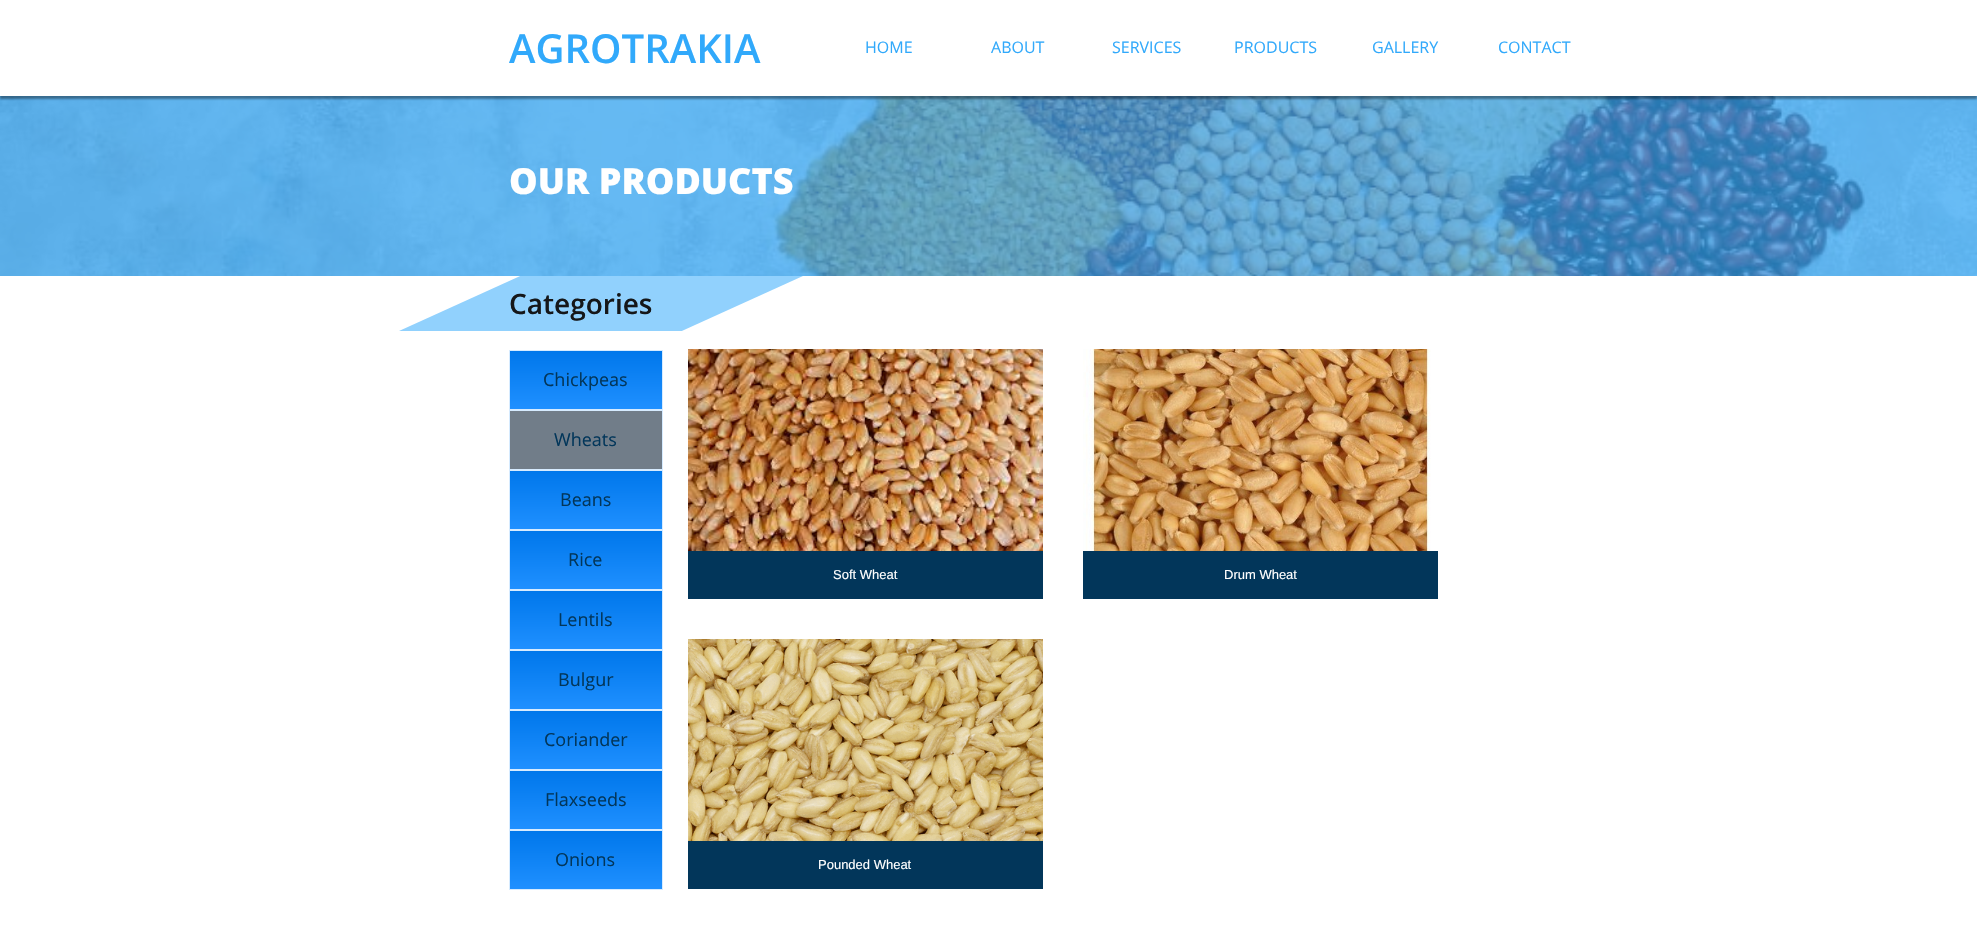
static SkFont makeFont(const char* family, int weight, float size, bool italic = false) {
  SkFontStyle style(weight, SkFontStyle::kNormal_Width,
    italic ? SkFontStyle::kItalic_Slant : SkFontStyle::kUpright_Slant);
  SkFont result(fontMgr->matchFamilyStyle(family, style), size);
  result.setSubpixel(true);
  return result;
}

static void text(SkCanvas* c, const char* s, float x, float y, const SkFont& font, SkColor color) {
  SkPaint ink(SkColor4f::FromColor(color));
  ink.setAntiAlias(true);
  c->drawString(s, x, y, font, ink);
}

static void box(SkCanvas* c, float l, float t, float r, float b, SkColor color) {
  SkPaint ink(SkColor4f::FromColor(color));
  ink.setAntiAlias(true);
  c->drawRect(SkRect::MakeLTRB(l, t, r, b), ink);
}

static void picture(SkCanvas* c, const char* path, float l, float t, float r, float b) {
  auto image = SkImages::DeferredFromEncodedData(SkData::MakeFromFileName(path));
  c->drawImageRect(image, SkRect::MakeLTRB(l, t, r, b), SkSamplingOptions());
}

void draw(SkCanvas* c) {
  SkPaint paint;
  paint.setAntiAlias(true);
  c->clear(0xffffffff);
  picture(c, "img_01.png", 0, 96, 1977, 276);
  c->save();
  c->clipRect(SkRect::MakeLTRB(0, 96, 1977, 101));
  paint.setColor(0x63000000);
  paint.setMaskFilter(SkMaskFilter::MakeBlur(kNormal_SkBlurStyle, 1));
  c->drawRect(SkRect::MakeLTRB(0, 3, 1977, 99), paint);
  paint.setMaskFilter(nullptr);
  c->restore();
  SkFont face1 = makeFont("Open Sans", 600, 40);
  text(c, "AGROTRAKIA", 509, 63, face1, 0xff31a9fb);
  SkFont face2 = makeFont("Open Sans", 400, 16);
  text(c, "HOME", 865, 53, face2, 0xff31a9fb);
  text(c, "ABOUT", 991, 53, face2, 0xff31a9fb);
  text(c, "SERVICES", 1112, 53, face2, 0xff31a9fb);
  text(c, "PRODUCTS", 1234, 53, face2, 0xff31a9fb);
  text(c, "GALLERY", 1372, 53, face2, 0xff31a9fb);
  text(c, "CONTACT", 1498, 53, face2, 0xff31a9fb);
  SkFont face3 = makeFont("Open Sans", 800, 36);
  text(c, "OUR PRODUCTS", 509, 194, face3, 0xffffffff);
  picture(c, "img_02.png", 399, 276, 803, 331);
  SkFont face4 = makeFont("Open Sans", 600, 28);
  text(c, "Categories", 509, 314, face4, 0xff151719);
  {
    const SkColor colors[] = {0xff0077eb, 0xff1f90ff};
    const float stops[] = {0, 1};
    const SkPoint ends[] = {{586, 351}, {586, 409}};
    paint.setShader(SkGradientShader::MakeLinear(ends, colors, stops, 2, SkTileMode::kClamp));
    paint.setAlpha(255);
  }
  c->drawRect(SkRect::MakeLTRB(510, 351, 662, 409), paint);
  paint.setStyle(SkPaint::kStroke_Style);
  paint.setStrokeWidth(1);
  paint.setShader(nullptr);
  paint.setColor(0xffd6ebff);
  c->drawRect(SkRect::MakeLTRB(509.5f, 350.5f, 662.5f, 409.5f), paint);
  SkFont face5 = makeFont("Open Sans", 400, 18);
  text(c, "Chickpeas", 543, 386, face5, 0xff02365a);
  paint.setStyle(SkPaint::kFill_Style);
  paint.setColor(0xff717d89);
  c->drawRect(SkRect::MakeLTRB(509.5f, 410.5f, 662.5f, 469.5f), paint);
  paint.setStyle(SkPaint::kStroke_Style);
  paint.setColor(0xffd6ebff);
  c->drawRect(SkRect::MakeLTRB(509.5f, 410.5f, 662.5f, 469.5f), paint);
  text(c, "Wheats", 554, 446, face5, 0xff02365a);
  paint.setStyle(SkPaint::kFill_Style);
  {
    const SkColor colors[] = {0xff0077eb, 0xff1f90ff};
    const float stops[] = {0, 1};
    const SkPoint ends[] = {{586, 471}, {586, 529}};
    paint.setShader(SkGradientShader::MakeLinear(ends, colors, stops, 2, SkTileMode::kClamp));
    paint.setAlpha(255);
  }
  c->drawRect(SkRect::MakeLTRB(510, 471, 662, 529), paint);
  paint.setStyle(SkPaint::kStroke_Style);
  paint.setShader(nullptr);
  paint.setColor(0xffd6ebff);
  c->drawRect(SkRect::MakeLTRB(509.5f, 470.5f, 662.5f, 529.5f), paint);
  text(c, "Beans", 560, 506, face5, 0xff02365a);
  paint.setStyle(SkPaint::kFill_Style);
  {
    const SkColor colors[] = {0xff0077eb, 0xff1f90ff};
    const float stops[] = {0, 1};
    const SkPoint ends[] = {{586, 531}, {586, 589}};
    paint.setShader(SkGradientShader::MakeLinear(ends, colors, stops, 2, SkTileMode::kClamp));
    paint.setAlpha(255);
  }
  c->drawRect(SkRect::MakeLTRB(510, 531, 662, 589), paint);
  paint.setStyle(SkPaint::kStroke_Style);
  paint.setShader(nullptr);
  paint.setColor(0xffd6ebff);
  c->drawRect(SkRect::MakeLTRB(509.5f, 530.5f, 662.5f, 589.5f), paint);
  text(c, "Rice", 568, 566, face5, 0xff02365a);
  paint.setStyle(SkPaint::kFill_Style);
  {
    const SkColor colors[] = {0xff0077eb, 0xff1f90ff};
    const float stops[] = {0, 1};
    const SkPoint ends[] = {{586, 591}, {586, 649}};
    paint.setShader(SkGradientShader::MakeLinear(ends, colors, stops, 2, SkTileMode::kClamp));
    paint.setAlpha(255);
  }
  c->drawRect(SkRect::MakeLTRB(510, 591, 662, 649), paint);
  paint.setStyle(SkPaint::kStroke_Style);
  paint.setShader(nullptr);
  paint.setColor(0xffd6ebff);
  c->drawRect(SkRect::MakeLTRB(509.5f, 590.5f, 662.5f, 649.5f), paint);
  text(c, "Lentils", 558, 626, face5, 0xff02365a);
  picture(c, "img_03.png", 688, 349, 1043, 551);
  box(c, 688, 551, 1043, 599, 0xff02365a);
  SkFont face6 = makeFont("Liberation Sans", 400, 13);
  text(c, "Soft Wheat", 833, 579, face6, 0xffffffff);
  picture(c, "img_04.png", 1083, 349, 1431, 551);
  box(c, 1083, 551, 1438, 599, 0xff02365a);
  text(c, "Drum Wheat", 1224, 579, face6, 0xffffffff);
  picture(c, "img_05.png", 688, 639, 1043, 841);
  box(c, 688, 841, 1043, 889, 0xff02365a);
  text(c, "Pounded Wheat", 818, 869, face6, 0xffffffff);
  paint.setStyle(SkPaint::kFill_Style);
  {
    const SkColor colors[] = {0xff0077eb, 0xff1f90ff};
    const float stops[] = {0, 1};
    const SkPoint ends[] = {{586, 651}, {586, 709}};
    paint.setShader(SkGradientShader::MakeLinear(ends, colors, stops, 2, SkTileMode::kClamp));
    paint.setAlpha(255);
  }
  c->drawRect(SkRect::MakeLTRB(510, 651, 662, 709), paint);
  paint.setStyle(SkPaint::kStroke_Style);
  paint.setShader(nullptr);
  paint.setColor(0xffd6ebff);
  c->drawRect(SkRect::MakeLTRB(509.5f, 650.5f, 662.5f, 709.5f), paint);
  text(c, "Bulgur", 558, 686, face5, 0xff02365a);
  paint.setStyle(SkPaint::kFill_Style);
  {
    const SkColor colors[] = {0xff0077eb, 0xff1f90ff};
    const float stops[] = {0, 1};
    const SkPoint ends[] = {{586, 711}, {586, 769}};
    paint.setShader(SkGradientShader::MakeLinear(ends, colors, stops, 2, SkTileMode::kClamp));
    paint.setAlpha(255);
  }
  c->drawRect(SkRect::MakeLTRB(510, 711, 662, 769), paint);
  paint.setStyle(SkPaint::kStroke_Style);
  paint.setShader(nullptr);
  paint.setColor(0xffd6ebff);
  c->drawRect(SkRect::MakeLTRB(509.5f, 710.5f, 662.5f, 769.5f), paint);
  text(c, "Coriander", 544, 746, face5, 0xff02365a);
  paint.setStyle(SkPaint::kFill_Style);
  {
    const SkColor colors[] = {0xff0077eb, 0xff1f90ff};
    const float stops[] = {0, 1};
    const SkPoint ends[] = {{586, 771}, {586, 829}};
    paint.setShader(SkGradientShader::MakeLinear(ends, colors, stops, 2, SkTileMode::kClamp));
    paint.setAlpha(255);
  }
  c->drawRect(SkRect::MakeLTRB(510, 771, 662, 829), paint);
  paint.setStyle(SkPaint::kStroke_Style);
  paint.setShader(nullptr);
  paint.setColor(0xffd6ebff);
  c->drawRect(SkRect::MakeLTRB(509.5f, 770.5f, 662.5f, 829.5f), paint);
  text(c, "Flaxseeds", 545, 806, face5, 0xff02365a);
  paint.setStyle(SkPaint::kFill_Style);
  {
    const SkColor colors[] = {0xff0077eb, 0xff1f90ff};
    const float stops[] = {0, 1};
    const SkPoint ends[] = {{586, 831}, {586, 889}};
    paint.setShader(SkGradientShader::MakeLinear(ends, colors, stops, 2, SkTileMode::kClamp));
    paint.setAlpha(255);
  }
  c->drawRect(SkRect::MakeLTRB(510, 831, 662, 889), paint);
  paint.setStyle(SkPaint::kStroke_Style);
  paint.setShader(nullptr);
  paint.setColor(0xffd6ebff);
  c->drawRect(SkRect::MakeLTRB(509.5f, 830.5f, 662.5f, 889.5f), paint);
  text(c, "Onions", 555, 866, face5, 0xff02365a);
}
